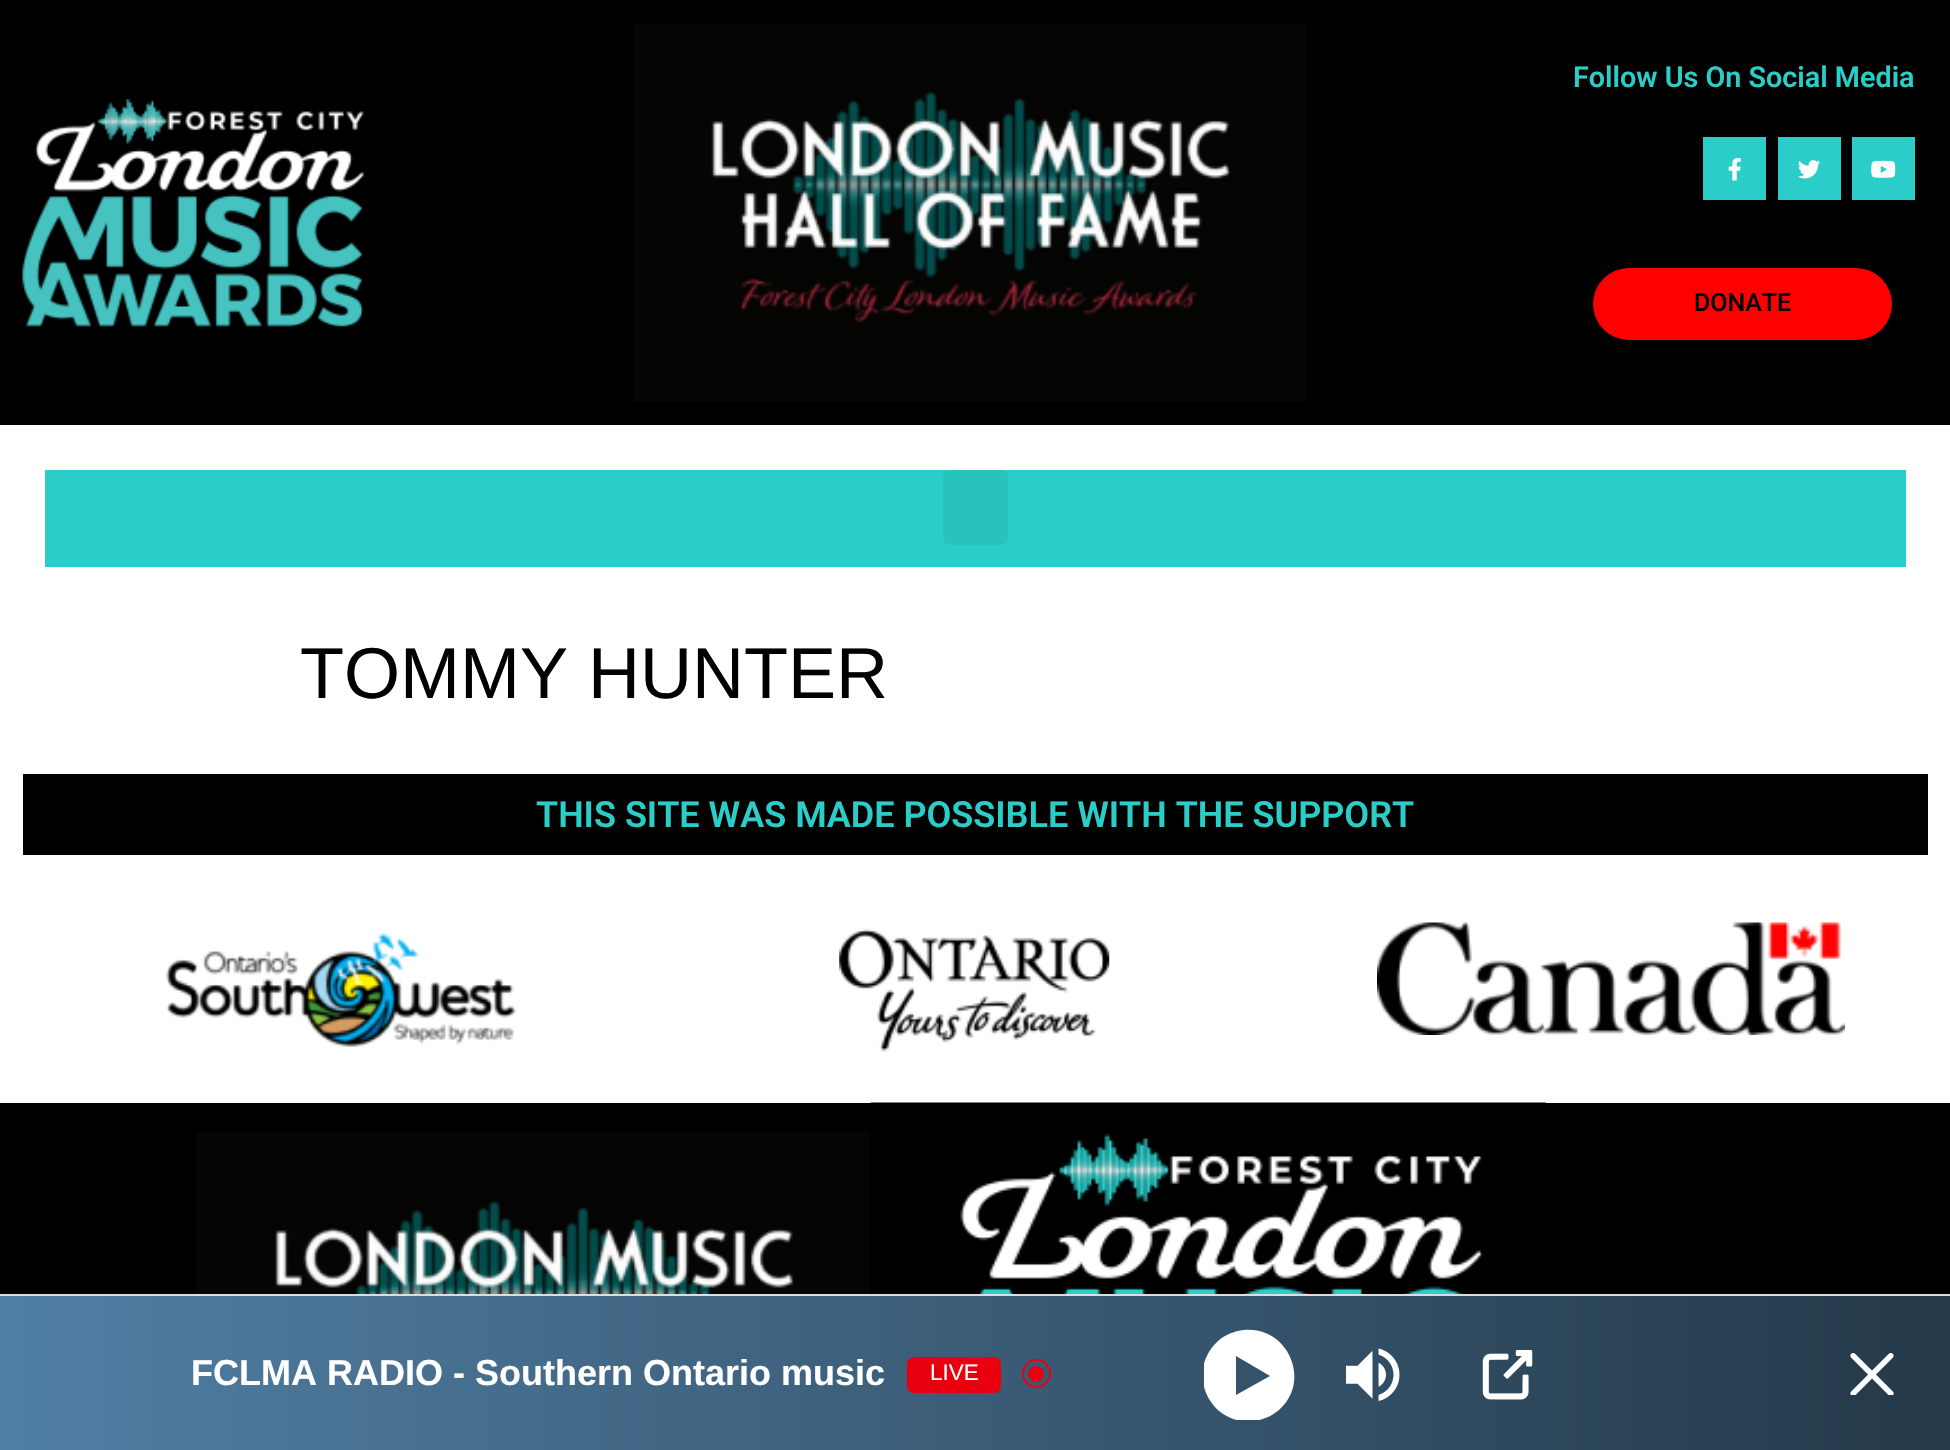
static SkFont makeFont(const char* family, int weight, float size, bool italic = false) {
  SkFontStyle style(weight, SkFontStyle::kNormal_Width,
    italic ? SkFontStyle::kItalic_Slant : SkFontStyle::kUpright_Slant);
  SkFont result(fontMgr->matchFamilyStyle(family, style), size);
  result.setSubpixel(true);
  return result;
}

static void text(SkCanvas* c, const char* s, float x, float y, const SkFont& font, SkColor color) {
  SkPaint ink(SkColor4f::FromColor(color));
  ink.setAntiAlias(true);
  c->drawString(s, x, y, font, ink);
}

static void box(SkCanvas* c, float l, float t, float r, float b, SkColor color) {
  SkPaint ink(SkColor4f::FromColor(color));
  ink.setAntiAlias(true);
  c->drawRect(SkRect::MakeLTRB(l, t, r, b), ink);
}

static void roundBox(SkCanvas* c, float l, float t, float r, float b, float radius, SkColor color) {
  SkPaint ink(SkColor4f::FromColor(color));
  ink.setAntiAlias(true);
  c->drawRoundRect(SkRect::MakeLTRB(l, t, r, b), radius, radius, ink);
}

static void picture(SkCanvas* c, const char* path, float l, float t, float r, float b) {
  auto image = SkImages::DeferredFromEncodedData(SkData::MakeFromFileName(path));
  c->drawImageRect(image, SkRect::MakeLTRB(l, t, r, b), SkSamplingOptions());
}

void draw(SkCanvas* c) {
  SkPaint paint;
  paint.setAntiAlias(true);
  c->clear(0xffffffff);
  box(c, 0, 0, 1950, 425, 0xff000000);
  picture(c, "img_01.png", 22, 99, 365, 327);
  picture(c, "img_02.png", 633, 23, 1307, 402);
  SkFont face1 = makeFont("Roboto", 600, 28.75f);
  text(c, "Follow Us On Social Media", 1573, 87, face1, 0xff2bcdc8);
  box(c, 1703, 137, 1766, 200, 0xff2bcdc8);
  picture(c, "img_03.png", 1728, 158, 1741, 181);
  box(c, 1778, 137, 1841, 200, 0xff2bcdc8);
  picture(c, "img_04.png", 1798, 160, 1821, 179);
  box(c, 1852, 137, 1915, 200, 0xff2bcdc8);
  picture(c, "img_05.png", 1871, 160, 1896, 178);
  roundBox(c, 1593, 268, 1892, 340, 36, 0xffff0000);
  SkFont face2 = makeFont("Roboto", 500, 25);
  text(c, "DONATE", 1694, 311, face2, 0xff000000);
  box(c, 45, 470, 1906, 567, 0xff2bcdc8);
  roundBox(c, 943, 470, 1008, 545, 7, 0xff29c3be);
  SkFont face3 = makeFont("Liberation Sans", 400, 72);
  text(c, "TOMMY HUNTER", 300, 698, face3, 0xff000000);
  box(c, 23, 774, 1928, 855, 0xff000000);
  SkFont face4 = makeFont("Roboto", 600, 36);
  text(c, "THIS SITE WAS MADE POSSIBLE WITH THE SUPPORT", 536, 827, face4, 0xff2bcdc8);
  picture(c, "img_06.png", 166, 933, 516, 1047);
  picture(c, "img_07.png", 839, 928, 1110, 1052);
  picture(c, "img_08.png", 1377, 922, 1845, 1035);
  box(c, 0, 1103, 1950, 1294, 0xff000000);
  picture(c, "img_09.png", 196, 1132, 870, 1294);
  picture(c, "img_10.png", 870, 1102, 1546, 1294);
  {
    const SkColor colors[] = {0xff243949, 0xff517fa4};
    const float stops[] = {0, 1};
    const SkPoint ends[] = {{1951, 1374}, {0, 1374}};
    paint.setShader(SkGradientShader::MakeLinear(ends, colors, stops, 2, SkTileMode::kClamp));
    paint.setAlpha(255);
  }
  c->drawRect(SkRect::MakeLTRB(0, 1296, 1950, 1450), paint);
  box(c, 0, 1294, 1950, 1296, 0xffdddddd);
  SkFont face5 = makeFont("Liberation Sans", 700, 36);
  text(c, "FCLMA RADIO - Southern Ontario music", 191, 1385, face5, 0xffffffff);
  roundBox(c, 907, 1357, 1001, 1393, 7, 0xffe8000e);
  SkFont face6 = makeFont("Liberation Sans", 400, 22.5f);
  text(c, "LIVE", 930, 1380, face6, 0xffffffff);
  paint.setShader(nullptr);
  paint.setColor(0xffe8000e);
  c->drawCircle(1036, 1374, 8, paint);
  paint.setStyle(SkPaint::kStroke_Style);
  paint.setStrokeWidth(2);
  c->drawCircle(1036.5f, 1373.5f, 13.5f, paint);
  c->save();
  c->clipRect(SkRect::MakeLTRB(1204, 1328, 1296, 1420));
  paint.setStyle(SkPaint::kFill_Style);
  paint.setColor(0xffffffff);
  c->drawPath(SkPathBuilder().moveTo(1244, 1330).cubicTo(1234, 1331, 1224, 1335, 1217, 1342).cubicTo(1185, 1373, 1210, 1426, 1254, 1421).cubicTo(1263, 1420, 1272, 1416, 1279, 1410).cubicTo(1312, 1381, 1288, 1326, 1244, 1330).close().moveTo(1253, 1366).lineTo(1270, 1376).lineTo(1236, 1395).lineTo(1236, 1356).close().detach(), paint);
  c->restore();
  picture(c, "img_11.png", 1346, 1348, 1400, 1401);
  picture(c, "img_12.png", 1482, 1350, 1533, 1400);
  picture(c, "img_13.png", 1850, 1353, 1894, 1395);
}
